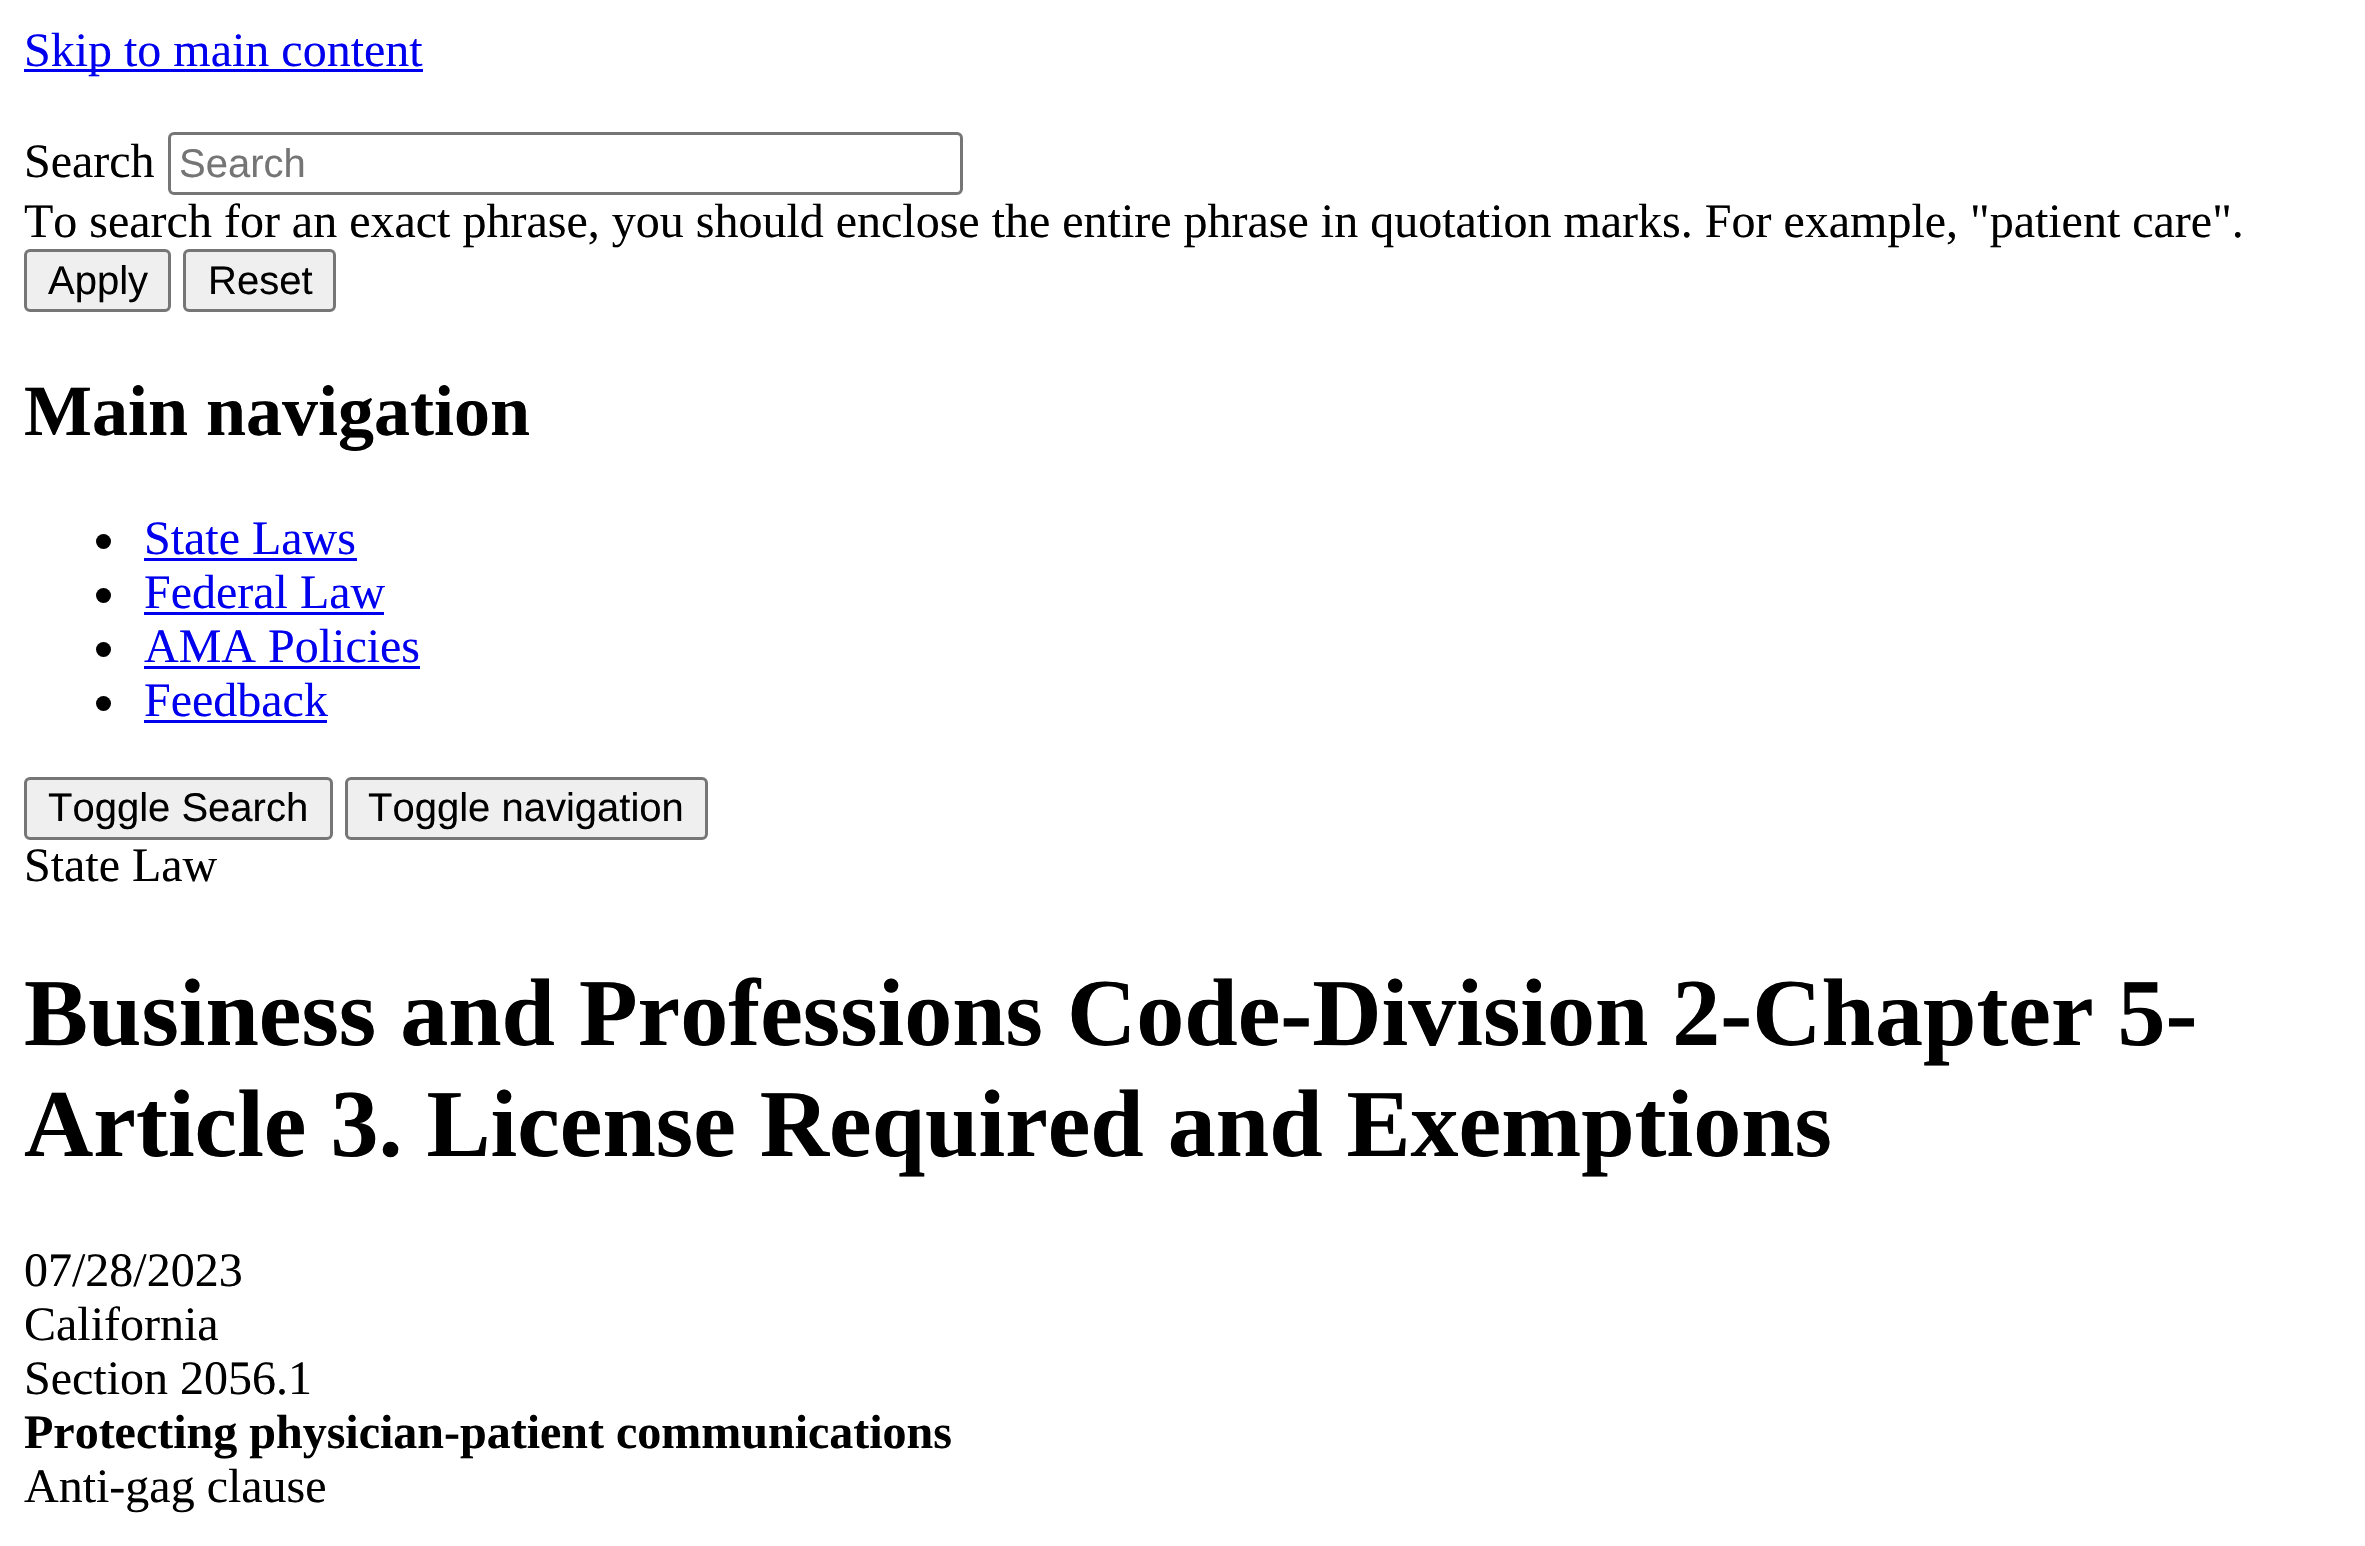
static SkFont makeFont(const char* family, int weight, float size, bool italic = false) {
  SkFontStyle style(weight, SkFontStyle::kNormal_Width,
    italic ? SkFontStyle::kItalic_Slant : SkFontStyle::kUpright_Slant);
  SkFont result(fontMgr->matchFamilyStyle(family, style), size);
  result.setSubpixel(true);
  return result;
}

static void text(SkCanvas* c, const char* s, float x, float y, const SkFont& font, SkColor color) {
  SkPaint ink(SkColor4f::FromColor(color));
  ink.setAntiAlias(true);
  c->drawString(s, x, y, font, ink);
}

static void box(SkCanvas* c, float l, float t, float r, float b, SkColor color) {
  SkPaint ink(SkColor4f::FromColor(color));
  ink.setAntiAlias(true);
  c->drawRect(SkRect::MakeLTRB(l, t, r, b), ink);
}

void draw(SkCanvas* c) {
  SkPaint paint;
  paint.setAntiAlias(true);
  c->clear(0xffffffff);
  box(c, 24, 69, 423, 72, 0xff0000ee);
  SkFont face1 = makeFont("Liberation Serif", 400, 48);
  text(c, "Skip to main content", 24, 66, face1, 0xff0000ee);
  text(c, "Search", 24, 177, face1, 0xff000000);
  paint.setStyle(SkPaint::kStroke_Style);
  paint.setStrokeWidth(3);
  paint.setColor(0xff767676);
  c->drawRoundRect(SkRect::MakeLTRB(169.5f, 133.5f, 961.5f, 193.5f), 4.5f, 4.5f, paint);
  SkFont face2 = makeFont("Liberation Sans", 400, 40);
  text(c, "Search", 179, 177, face2, 0xff757575);
  text(c, "To search for an exact phrase, you should enclose the entire phrase in quotation marks. For example, \"patient care\".", 24, 237, face1, 0xff000000);
  paint.setStyle(SkPaint::kFill_Style);
  paint.setColor(0xffefefef);
  c->drawRoundRect(SkRect::MakeLTRB(25.5f, 250.5f, 169.5f, 310.5f), 4.5f, 4.5f, paint);
  paint.setStyle(SkPaint::kStroke_Style);
  paint.setColor(0xff767676);
  c->drawRoundRect(SkRect::MakeLTRB(25.5f, 250.5f, 169.5f, 310.5f), 4.5f, 4.5f, paint);
  text(c, "Apply", 48, 294, face2, 0xff000000);
  paint.setStyle(SkPaint::kFill_Style);
  paint.setColor(0xffefefef);
  c->drawRoundRect(SkRect::MakeLTRB(184.5f, 250.5f, 334.5f, 310.5f), 4.5f, 4.5f, paint);
  paint.setStyle(SkPaint::kStroke_Style);
  paint.setColor(0xff767676);
  c->drawRoundRect(SkRect::MakeLTRB(184.5f, 250.5f, 334.5f, 310.5f), 4.5f, 4.5f, paint);
  text(c, "Reset", 208, 294, face2, 0xff000000);
  SkFont face3 = makeFont("Liberation Serif", 700, 72);
  text(c, "Main navigation", 24, 435, face3, 0xff000000);
  paint.setStyle(SkPaint::kFill_Style);
  paint.setColor(0xff000000);
  c->drawCircle(103.5f, 541.5f, 7.5f, paint);
  text(c, "State Laws", 144, 554, face1, 0xff0000ee);
  box(c, 144, 558, 357, 561, 0xff0000ee);
  c->drawCircle(103.5f, 595.5f, 7.5f, paint);
  text(c, "Federal Law", 144, 608, face1, 0xff0000ee);
  box(c, 144, 612, 384, 615, 0xff0000ee);
  c->drawCircle(103.5f, 649.5f, 7.5f, paint);
  text(c, "AMA Policies", 144, 662, face1, 0xff0000ee);
  box(c, 144, 666, 420, 669, 0xff0000ee);
  c->drawCircle(103.5f, 703.5f, 7.5f, paint);
  text(c, "Feedback", 144, 716, face1, 0xff0000ee);
  box(c, 144, 720, 327, 723, 0xff0000ee);
  paint.setColor(0xffefefef);
  c->drawRoundRect(SkRect::MakeLTRB(25.5f, 778.5f, 331.5f, 838.5f), 4.5f, 4.5f, paint);
  paint.setStyle(SkPaint::kStroke_Style);
  paint.setColor(0xff767676);
  c->drawRoundRect(SkRect::MakeLTRB(25.5f, 778.5f, 331.5f, 838.5f), 4.5f, 4.5f, paint);
  text(c, "Toggle Search", 48, 821, face2, 0xff000000);
  paint.setStyle(SkPaint::kFill_Style);
  paint.setColor(0xffefefef);
  c->drawRoundRect(SkRect::MakeLTRB(346.5f, 778.5f, 706.5f, 838.5f), 4.5f, 4.5f, paint);
  paint.setStyle(SkPaint::kStroke_Style);
  paint.setColor(0xff767676);
  c->drawRoundRect(SkRect::MakeLTRB(346.5f, 778.5f, 706.5f, 838.5f), 4.5f, 4.5f, paint);
  text(c, "Toggle navigation", 368, 821, face2, 0xff000000);
  text(c, "State Law", 24, 881, face1, 0xff000000);
  SkFont face4 = makeFont("Liberation Serif", 700, 96);
  text(c, "Business and Professions Code-Division 2-Chapter 5-", 24, 1045, face4, 0xff000000);
  text(c, "Article 3. License Required and Exemptions", 24, 1156, face4, 0xff000000);
  text(c, "07/28/2023", 24, 1286, face1, 0xff000000);
  text(c, "California", 24, 1340, face1, 0xff000000);
  text(c, "Section 2056.1", 24, 1394, face1, 0xff000000);
  SkFont face5 = makeFont("Liberation Serif", 700, 48);
  text(c, "Protecting physician-patient communications", 24, 1448, face5, 0xff000000);
  text(c, "Anti-gag clause", 24, 1502, face1, 0xff000000);
}
